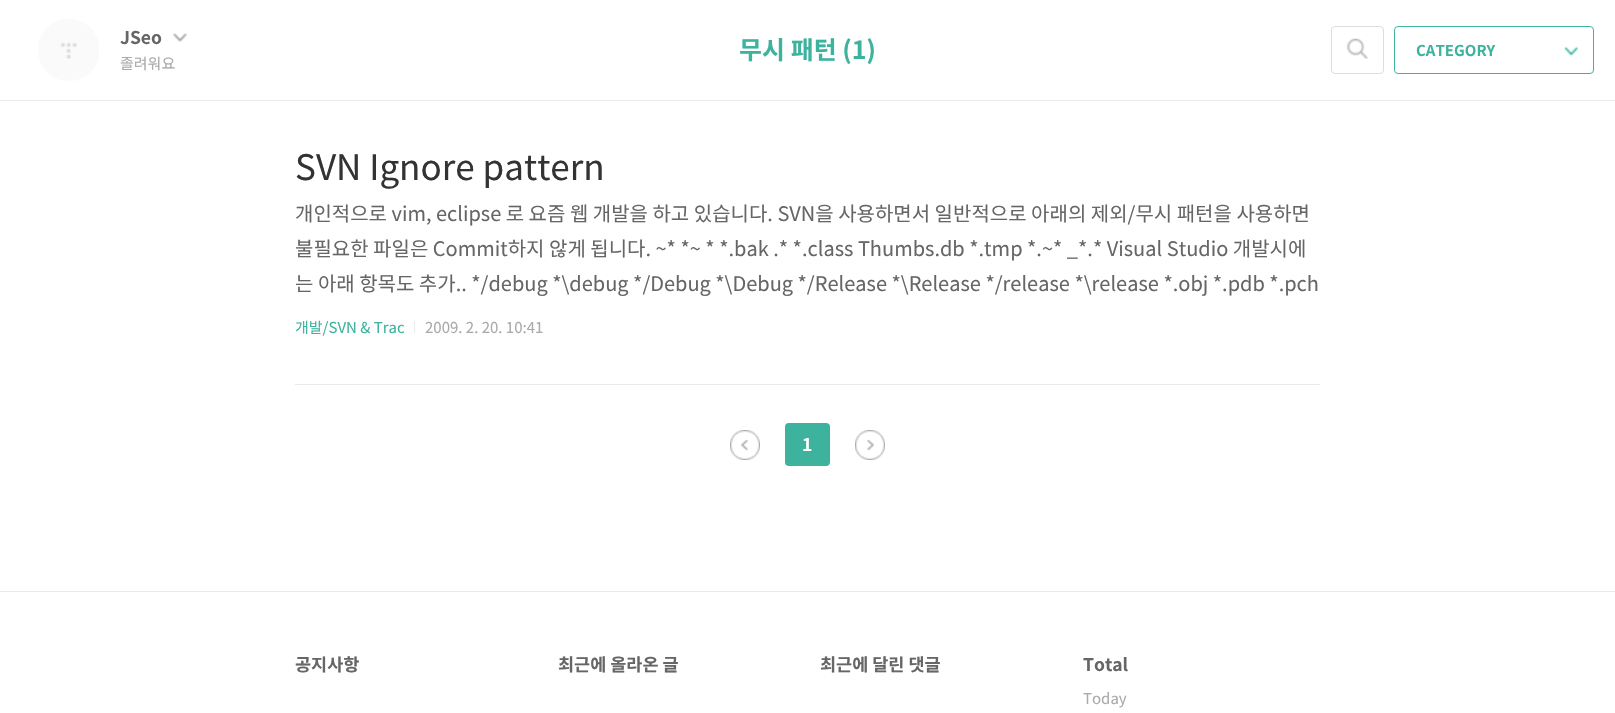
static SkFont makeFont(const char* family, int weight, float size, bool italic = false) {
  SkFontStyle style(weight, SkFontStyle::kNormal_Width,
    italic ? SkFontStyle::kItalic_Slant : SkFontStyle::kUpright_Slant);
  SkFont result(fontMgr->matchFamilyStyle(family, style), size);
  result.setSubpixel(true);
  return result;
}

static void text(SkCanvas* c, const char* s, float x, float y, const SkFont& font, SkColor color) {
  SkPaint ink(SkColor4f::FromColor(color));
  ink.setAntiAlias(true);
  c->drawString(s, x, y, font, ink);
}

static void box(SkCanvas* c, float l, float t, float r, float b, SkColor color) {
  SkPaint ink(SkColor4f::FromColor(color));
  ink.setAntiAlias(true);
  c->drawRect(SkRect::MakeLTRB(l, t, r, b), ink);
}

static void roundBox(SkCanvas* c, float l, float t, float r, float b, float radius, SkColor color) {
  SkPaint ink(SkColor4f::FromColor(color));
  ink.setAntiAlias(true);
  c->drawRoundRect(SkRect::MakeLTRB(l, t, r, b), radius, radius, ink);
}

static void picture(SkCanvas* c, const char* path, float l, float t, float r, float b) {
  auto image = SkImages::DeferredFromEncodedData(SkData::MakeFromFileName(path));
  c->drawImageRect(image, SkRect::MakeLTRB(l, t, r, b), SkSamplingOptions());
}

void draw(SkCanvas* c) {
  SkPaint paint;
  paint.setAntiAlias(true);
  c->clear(0xffffffff);
  box(c, 0, 100, 1615, 101, 0xffebebeb);
  picture(c, "img_01.png", 38, 19, 99, 81);
  SkFont face1 = makeFont("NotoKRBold", 700, 17.5f);
  text(c, "JSeo", 120, 44, face1, 0xff666666);
  picture(c, "img_02.png", 173, 33, 187, 42);
  SkFont face2 = makeFont("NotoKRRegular", 400, 15);
  text(c, "졸려워요", 120, 69, face2, 0xffaaaaaa);
  SkFont face3 = makeFont("NotoKRBold", 700, 25);
  text(c, "무시 패턴 (1)", 739, 59, face3, 0xff3db39e);
  paint.setStyle(SkPaint::kStroke_Style);
  paint.setStrokeWidth(1);
  paint.setColor(0xffdddddd);
  c->drawRoundRect(SkRect::MakeLTRB(1331.5f, 26.5f, 1383.5f, 73.5f), 3.5f, 3.5f, paint);
  picture(c, "img_03.png", 1347, 38, 1368, 59);
  paint.setColor(0xff3db39e);
  c->drawRoundRect(SkRect::MakeLTRB(1394.5f, 26.5f, 1593.5f, 73.5f), 3.5f, 3.5f, paint);
  SkFont face4 = makeFont("NotoKRBold", 700, 15);
  text(c, "CATEGORY", 1416, 56, face4, 0xff3db39e);
  picture(c, "img_04.png", 1564, 46, 1579, 56);
  box(c, 295, 384, 1320, 385, 0xffebebeb);
  SkFont face5 = makeFont("NotoKRRegular", 400, 35);
  text(c, "SVN Ignore pattern", 295, 180, face5, 0xff333333);
  SkFont face6 = makeFont("NotoKRRegular", 400, 20);
  text(c, "개인적으로 vim, eclipse 로 요즘 웹 개발을 하고 있습니다. SVN을 사용하면서 일반적으로 아래의 제외/무시 패턴을 사용하면", 295, 221, face6, 0xff666666);
  text(c, "불필요한 파일은 Commit하지 않게 됩니다. ~* *~ * *.bak .* *.class Thumbs.db *.tmp *.~* _*.* Visual Studio 개발시에", 295, 256, face6, 0xff666666);
  text(c, "는 아래 항목도 추가.. */debug *\\debug */Debug *\\Debug */Release *\\Release */release *\\release *.obj *.pdb *.pch", 295, 291, face6, 0xff666666);
  text(c, "개발/SVN & Trac", 295, 333, face2, 0xff3db39e);
  box(c, 414, 321, 415, 333, 0xffebebeb);
  text(c, "2009. 2. 20. 10:41", 425, 333, face2, 0xffaaaaaa);
  picture(c, "img_05.png", 730, 430, 760, 460);
  roundBox(c, 785, 423, 830, 466, 4, 0xff3db39e);
  text(c, "1", 802, 451, face1, 0xffffffff);
  picture(c, "img_06.png", 855, 430, 885, 460);
  box(c, 0, 591, 1615, 592, 0xffebebeb);
  text(c, "공지사항", 295, 671, face1, 0xff666666);
  text(c, "최근에 올라온 글", 558, 671, face1, 0xff666666);
  text(c, "최근에 달린 댓글", 820, 671, face1, 0xff666666);
  text(c, "Total", 1083, 671, face1, 0xff666666);
  text(c, "Today", 1083, 704, face2, 0xffaaaaaa);
}
